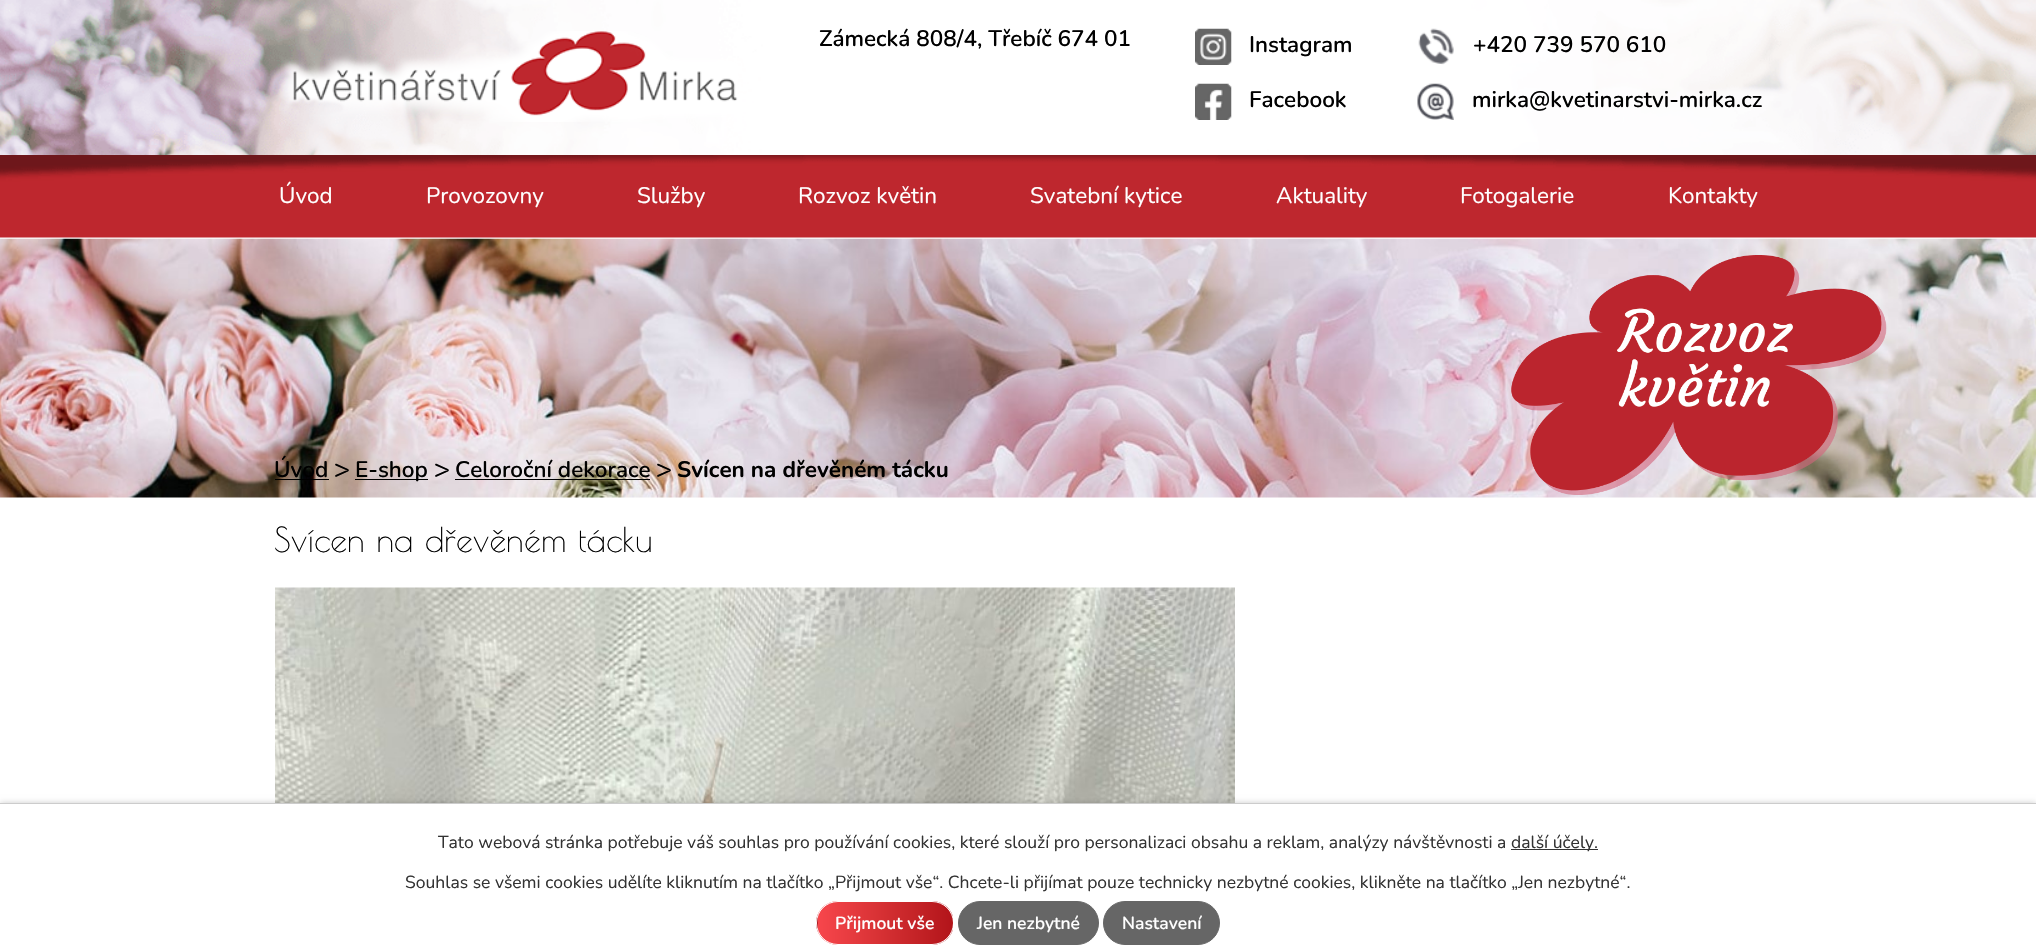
static SkFont makeFont(const char* family, int weight, float size, bool italic = false) {
  SkFontStyle style(weight, SkFontStyle::kNormal_Width,
    italic ? SkFontStyle::kItalic_Slant : SkFontStyle::kUpright_Slant);
  SkFont result(fontMgr->matchFamilyStyle(family, style), size);
  result.setSubpixel(true);
  return result;
}

static void text(SkCanvas* c, const char* s, float x, float y, const SkFont& font, SkColor color) {
  SkPaint ink(SkColor4f::FromColor(color));
  ink.setAntiAlias(true);
  c->drawString(s, x, y, font, ink);
}

static void box(SkCanvas* c, float l, float t, float r, float b, SkColor color) {
  SkPaint ink(SkColor4f::FromColor(color));
  ink.setAntiAlias(true);
  c->drawRect(SkRect::MakeLTRB(l, t, r, b), ink);
}

static void picture(SkCanvas* c, const char* path, float l, float t, float r, float b) {
  auto image = SkImages::DeferredFromEncodedData(SkData::MakeFromFileName(path));
  c->drawImageRect(image, SkRect::MakeLTRB(l, t, r, b), SkSamplingOptions());
}

void draw(SkCanvas* c) {
  SkPaint paint;
  paint.setAntiAlias(true);
  c->clear(0xffffffff);
  picture(c, "img_01.png", 0, 0, 2036, 155);
  picture(c, "img_02.png", 281, 31, 738, 122);
  SkFont face1 = makeFont("Nunito", 600, 22.5f);
  text(c, "Zámecká 808/4, Třebíč 674 01", 819, 46, face1, 0xff000000);
  picture(c, "img_03.png", 1195, 28, 1232, 65);
  text(c, "Instagram", 1249, 52, face1, 0xff000000);
  picture(c, "img_04.png", 1195, 83, 1232, 120);
  text(c, "Facebook", 1249, 107, face1, 0xff000000);
  picture(c, "img_05.png", 1418, 28, 1454, 65);
  text(c, "+420 739 570 610", 1473, 52, face1, 0xff000000);
  picture(c, "img_06.png", 1417, 83, 1454, 120);
  text(c, "mirka@kvetinarstvi-mirka.cz", 1472, 107, face1, 0xff000000);
  picture(c, "img_07.png", 0, 238, 2036, 498);
  picture(c, "img_08.png", 1511, 255, 1887, 495);
  picture(c, "img_09.png", 0, 155, 2036, 238);
  SkFont face2 = makeFont("Nunito", 400, 22.5f);
  text(c, "Úvod", 279, 203, face2, 0xffffffff);
  text(c, "Provozovny", 426, 203, face2, 0xffffffff);
  text(c, "Služby", 637, 203, face2, 0xffffffff);
  text(c, "Rozvoz květin", 798, 203, face2, 0xffffffff);
  text(c, "Svatební kytice", 1030, 203, face2, 0xffffffff);
  text(c, "Aktuality", 1276, 203, face2, 0xffffffff);
  text(c, "Fotogalerie", 1460, 203, face2, 0xffffffff);
  text(c, "Kontakty", 1668, 203, face2, 0xffffffff);
  text(c, "Úvod", 274, 477, face1, 0xff000000);
  box(c, 275, 479, 329, 480, 0xff000000);
  SkFont face3 = makeFont("Nunito", 400, 27);
  text(c, ">", 334, 478, face3, 0xff000000);
  box(c, 355, 479, 428, 480, 0xff000000);
  text(c, "E-shop", 355, 477, face1, 0xff000000);
  text(c, ">", 434, 478, face3, 0xff000000);
  text(c, "Celoroční dekorace", 455, 477, face1, 0xff000000);
  box(c, 455, 479, 650, 480, 0xff000000);
  text(c, ">", 656, 478, face3, 0xff000000);
  SkFont face4 = makeFont("Nunito", 700, 22.5f);
  text(c, "Svícen na dřevěném tácku", 677, 477, face4, 0xff000000);
  SkFont face5 = makeFont("Poiret One", 400, 33.75f);
  text(c, "Svícen na dřevěném tácku", 274, 552, face5, 0xff000000);
  picture(c, "img_10.png", 275, 587, 1235, 803);
  paint.setColor(0x33000000);
  paint.setMaskFilter(SkMaskFilter::MakeBlur(kNormal_SkBlurStyle, 3));
  c->drawRect(SkRect::MakeLTRB(0, 803, 2036, 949), paint);
  paint.setMaskFilter(nullptr);
  box(c, 0, 804, 2036, 948, 0xffffffff);
  box(c, 0, 803, 2036, 804, 0xffcccccc);
  SkFont face6 = makeFont("Nunito", 400, 17.5f);
  text(c, "Tato webová stránka potřebuje váš souhlas pro používání cookies, které slouží pro personalizaci obsahu a reklam, analýzy návštěvnosti a", 438, 848, face6, 0xff333333);
  box(c, 1511, 849, 1598, 850, 0xff333333);
  text(c, "další účely.", 1511, 848, face6, 0xff333333);
  text(c, "Souhlas se všemi cookies udělíte kliknutím na tlačítko „Přijmout vše“. Chcete-li přijímat pouze technicky nezbytné cookies, klikněte na tlačítko „Jen nezbytné“.", 405, 888, face6, 0xff333333);
  c->save();
  c->clipPath(SkPathBuilder().moveTo(838, 901).lineTo(932, 901).cubicTo(944, 901, 954, 911, 954, 923).cubicTo(954, 935, 944, 945, 932, 945).lineTo(838, 945).cubicTo(826, 945, 816, 935, 816, 923).cubicTo(816, 911, 826, 901, 838, 901).close().detach(), true);
  {
    const SkColor colors[] = {0xfff7464c, 0xffe63b3f, 0xffd42f32, 0xffc32226, 0xffb2141a};
    const float stops[] = {0, 0.25f, 0.5f, 0.75f, 1};
    const SkPoint ends[] = {{818, 923}, {953, 923}};
    paint.setShader(SkGradientShader::MakeLinear(ends, colors, stops, 5, SkTileMode::kClamp));
    paint.setAlpha(255);
  }
  c->drawRect(SkRect::MakeLTRB(818, 901, 953, 945), paint);
  {
    const SkColor colors[] = {0xfff7464c, 0xffe63b3f, 0xffd42f32, 0xffc32226, 0xffb2141a};
    const float stops[] = {0, 0.25f, 0.5f, 0.75f, 1};
    const SkPoint ends[] = {{683, 923}, {818, 923}};
    paint.setShader(SkGradientShader::MakeLinear(ends, colors, stops, 5, SkTileMode::kClamp));
    paint.setAlpha(255);
  }
  c->drawRect(SkRect::MakeLTRB(816, 914, 818, 932), paint);
  c->restore();
  paint.setStyle(SkPaint::kStroke_Style);
  paint.setStrokeWidth(1);
  paint.setShader(nullptr);
  paint.setColor(0xffffffff);
  c->drawRoundRect(SkRect::MakeLTRB(816.5f, 901.5f, 953.5f, 944.5f), 21.5f, 21.5f, paint);
  SkFont face7 = makeFont("Nunito", 600, 17.5f);
  text(c, "Přijmout vše", 835, 929, face7, 0xffffffff);
  paint.setStyle(SkPaint::kFill_Style);
  paint.setColor(0xff666666);
  c->drawRoundRect(SkRect::MakeLTRB(958.5f, 901.5f, 1098.5f, 944.5f), 21.5f, 21.5f, paint);
  paint.setStyle(SkPaint::kStroke_Style);
  c->drawRoundRect(SkRect::MakeLTRB(958.5f, 901.5f, 1098.5f, 944.5f), 21.5f, 21.5f, paint);
  text(c, "Jen nezbytné", 977, 929, face7, 0xffffffff);
  paint.setStyle(SkPaint::kFill_Style);
  c->drawRoundRect(SkRect::MakeLTRB(1103.5f, 901.5f, 1219.5f, 944.5f), 21.5f, 21.5f, paint);
  paint.setStyle(SkPaint::kStroke_Style);
  c->drawRoundRect(SkRect::MakeLTRB(1103.5f, 901.5f, 1219.5f, 944.5f), 21.5f, 21.5f, paint);
  text(c, "Nastavení", 1122, 929, face7, 0xffffffff);
}
